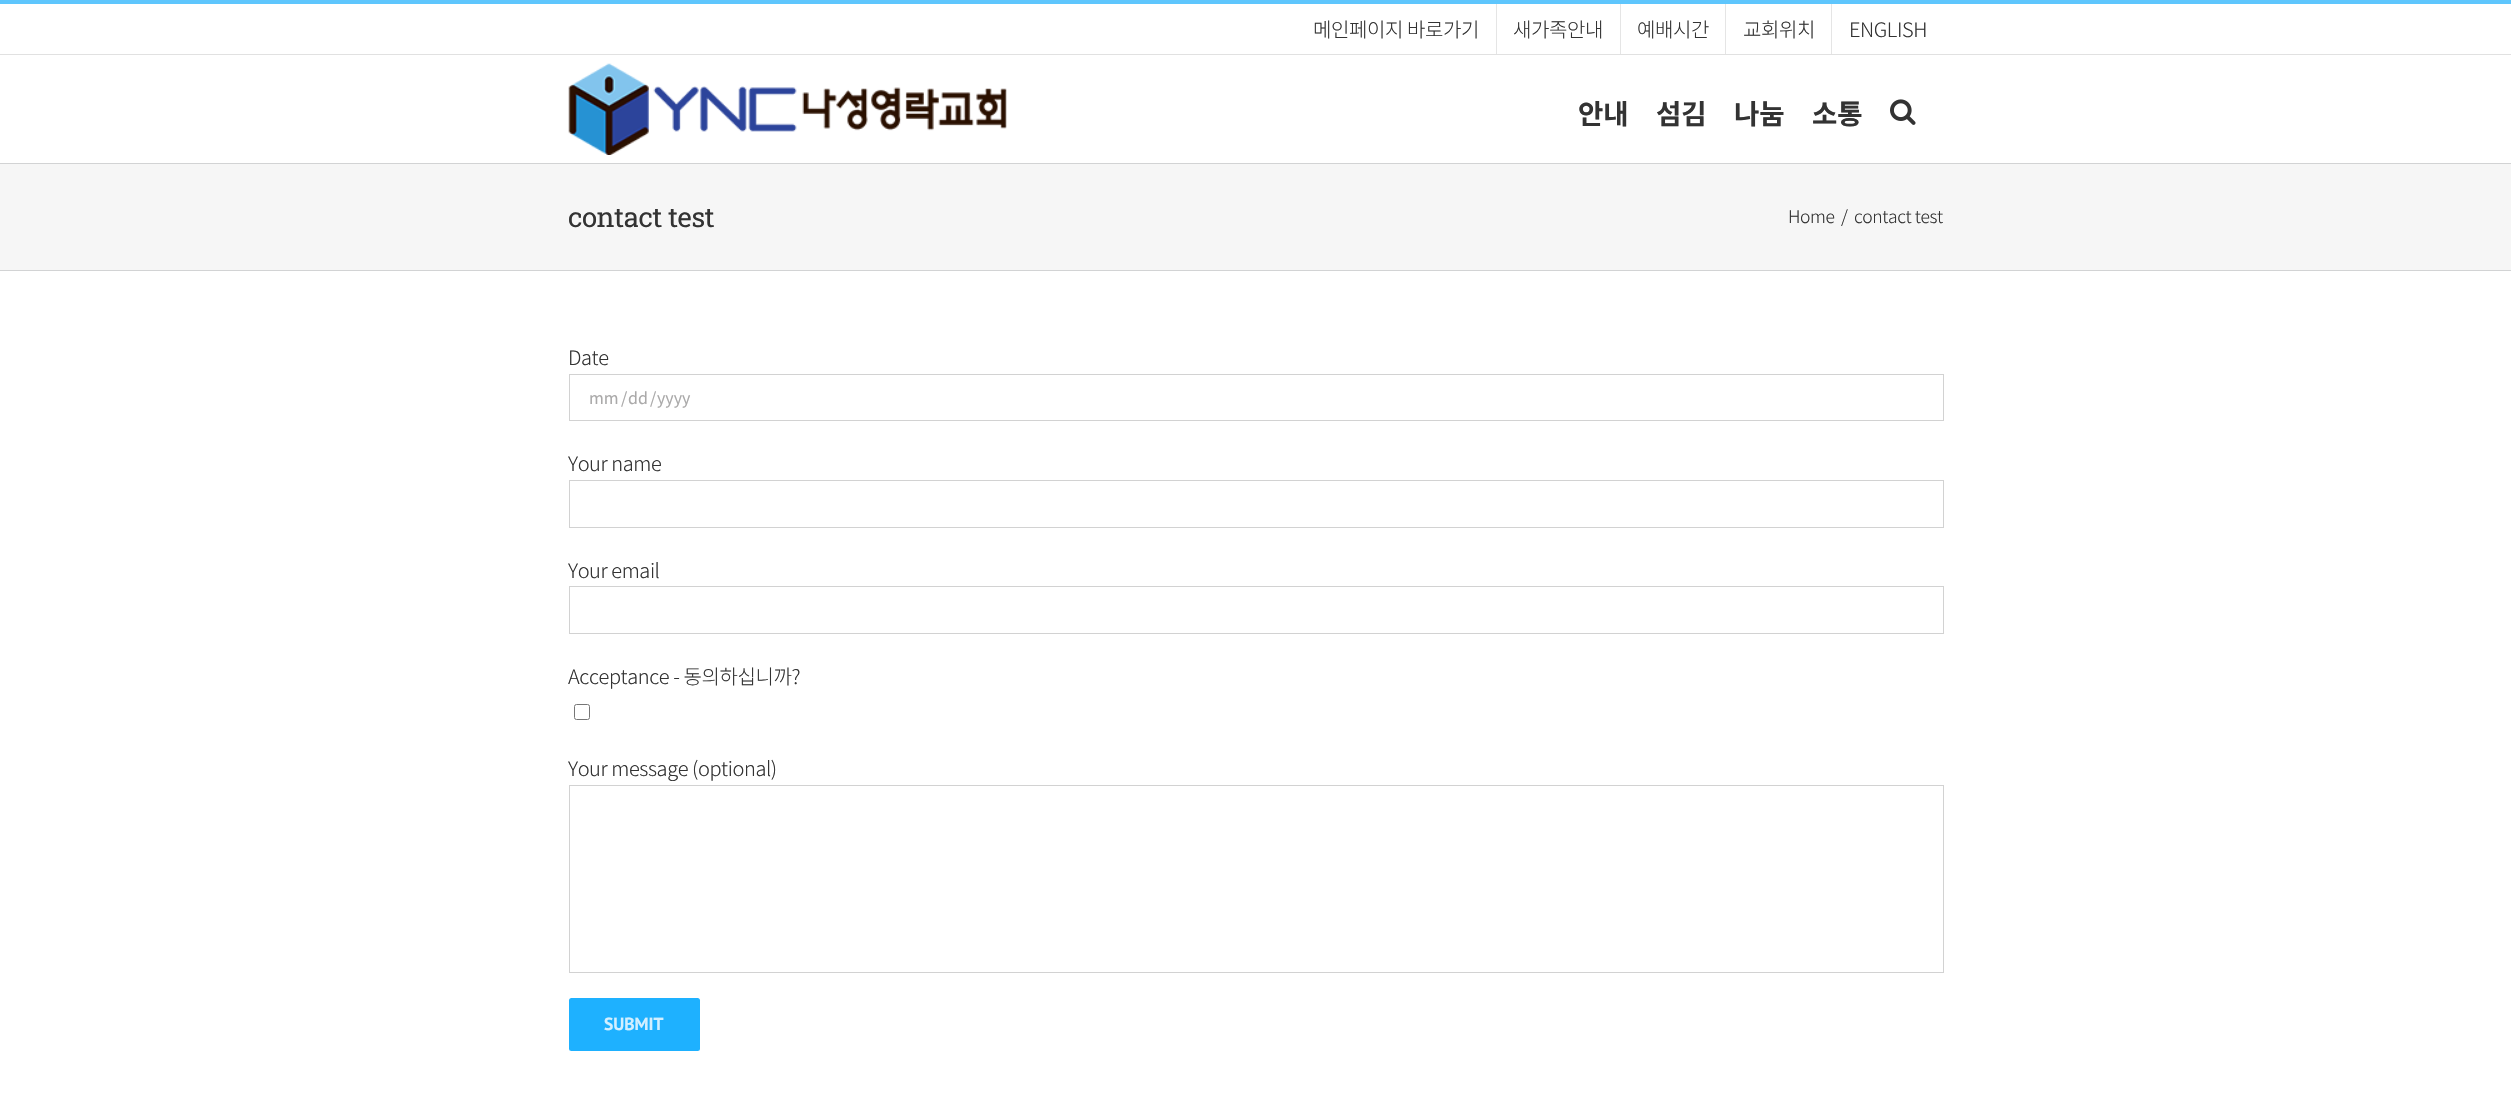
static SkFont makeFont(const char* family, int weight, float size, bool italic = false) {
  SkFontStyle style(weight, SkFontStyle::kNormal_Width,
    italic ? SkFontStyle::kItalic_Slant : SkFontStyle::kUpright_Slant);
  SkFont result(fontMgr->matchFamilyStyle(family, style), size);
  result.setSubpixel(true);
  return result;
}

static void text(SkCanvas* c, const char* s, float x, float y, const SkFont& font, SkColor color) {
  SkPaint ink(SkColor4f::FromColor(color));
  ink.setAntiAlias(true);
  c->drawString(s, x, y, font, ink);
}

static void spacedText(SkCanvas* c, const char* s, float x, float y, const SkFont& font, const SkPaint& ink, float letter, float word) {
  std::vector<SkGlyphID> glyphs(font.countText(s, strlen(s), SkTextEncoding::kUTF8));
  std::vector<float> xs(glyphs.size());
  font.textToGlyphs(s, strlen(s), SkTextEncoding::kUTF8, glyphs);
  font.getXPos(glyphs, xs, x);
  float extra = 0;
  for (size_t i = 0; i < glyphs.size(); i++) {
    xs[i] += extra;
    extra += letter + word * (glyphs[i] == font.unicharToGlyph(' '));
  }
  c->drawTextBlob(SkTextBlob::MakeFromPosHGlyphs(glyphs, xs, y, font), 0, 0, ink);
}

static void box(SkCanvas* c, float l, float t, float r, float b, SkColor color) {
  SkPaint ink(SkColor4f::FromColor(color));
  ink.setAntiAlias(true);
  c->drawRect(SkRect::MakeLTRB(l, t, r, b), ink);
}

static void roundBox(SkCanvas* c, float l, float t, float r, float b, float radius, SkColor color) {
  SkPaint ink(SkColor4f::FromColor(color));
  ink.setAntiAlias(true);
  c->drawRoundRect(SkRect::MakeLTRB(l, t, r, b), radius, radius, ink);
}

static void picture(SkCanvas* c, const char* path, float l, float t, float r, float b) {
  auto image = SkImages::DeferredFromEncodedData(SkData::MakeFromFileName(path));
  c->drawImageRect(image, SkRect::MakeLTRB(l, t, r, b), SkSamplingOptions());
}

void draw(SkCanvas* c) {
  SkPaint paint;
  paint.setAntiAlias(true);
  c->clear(0xffffffff);
  box(c, 0, 0, 2511, 4, 0xff5ec6fd);
  box(c, 0, 54, 2511, 55, 0xffe1e1e1);
  SkFont face1 = makeFont("Noto Sans KR", 300, 20);
  paint.setColor(0xff333333);
  spacedText(c, "메인페이지 바로가기", 1313, 37, face1, paint, -0.4f, 0);
  box(c, 1496, 4, 1497, 54, 0xffe5e5e5);
  spacedText(c, "새가족안내", 1513, 37, face1, paint, -0.4f, 0);
  box(c, 1620, 4, 1621, 54, 0xffe5e5e5);
  spacedText(c, "예배시간", 1637, 37, face1, paint, -0.4f, 0);
  box(c, 1725, 4, 1726, 54, 0xffe5e5e5);
  spacedText(c, "교회위치", 1743, 37, face1, paint, -0.4f, 0);
  box(c, 1831, 4, 1832, 54, 0xffe5e5e5);
  spacedText(c, "ENGLISH", 1849, 37, face1, paint, -0.4f, 0);
  picture(c, "img_01.png", 568, 63, 1007, 155);
  SkFont face2 = makeFont("Noto Sans KR", 700, 27.5f);
  text(c, "안내", 1578, 124, face2, 0xff333333);
  text(c, "섬김", 1656, 124, face2, 0xff333333);
  text(c, "나눔", 1734, 124, face2, 0xff333333);
  text(c, "소통", 1812, 124, face2, 0xff333333);
  picture(c, "img_02.png", 1890, 99, 1916, 125);
  box(c, 0, 164, 2511, 270, 0xfff6f6f6);
  box(c, 0, 163, 2511, 164, 0xffd2d3d4);
  box(c, 0, 270, 2511, 271, 0xffd2d3d4);
  SkFont face3 = makeFont("Roboto Slab", 400, 27.5f);
  spacedText(c, "contact test", 568, 227, face3, paint, -0.4f, 0);
  SkFont face4 = makeFont("Noto Sans KR", 300, 17.5f);
  spacedText(c, "Home", 1788, 223, face4, paint, -0.4f, 0);
  spacedText(c, "/", 1841, 223, face4, paint, -0.4f, 0);
  spacedText(c, "contact test", 1854, 223, face4, paint, -0.4f, 0);
  spacedText(c, "Date", 568, 365, face1, paint, -0.4f, 0);
  paint.setStyle(SkPaint::kStroke_Style);
  paint.setStrokeWidth(1);
  paint.setColor(0xffd2d2d2);
  c->drawRect(SkRect::MakeLTRB(569.5f, 374.5f, 1943.5f, 420.5f), paint);
  SkFont face5 = makeFont("Noto Sans KR", 400, 16);
  text(c, "mm", 589, 404, face5, 0xffaaa9a9);
  text(c, "/", 621, 404, face5, 0xffaaa9a9);
  text(c, "dd", 628, 404, face5, 0xffaaa9a9);
  text(c, "/", 650, 404, face5, 0xffaaa9a9);
  text(c, "yyyy", 657, 404, face5, 0xffaaa9a9);
  paint.setStyle(SkPaint::kFill_Style);
  paint.setColor(0xff333333);
  spacedText(c, "Your name", 568, 471, face1, paint, -0.4f, 0);
  paint.setStyle(SkPaint::kStroke_Style);
  paint.setColor(0xffd2d2d2);
  c->drawRect(SkRect::MakeLTRB(569.5f, 480.5f, 1943.5f, 527.5f), paint);
  paint.setStyle(SkPaint::kFill_Style);
  paint.setColor(0xff333333);
  spacedText(c, "Your email", 568, 578, face1, paint, -0.4f, 0);
  paint.setStyle(SkPaint::kStroke_Style);
  paint.setColor(0xffd2d2d2);
  c->drawRect(SkRect::MakeLTRB(569.5f, 586.5f, 1943.5f, 633.5f), paint);
  paint.setStyle(SkPaint::kFill_Style);
  paint.setColor(0xff333333);
  spacedText(c, "Acceptance - 동의하십니까?", 568, 684, face1, paint, -0.4f, 0);
  paint.setStyle(SkPaint::kStroke_Style);
  paint.setColor(0xff767676);
  c->drawRoundRect(SkRect::MakeLTRB(574.5f, 704.5f, 589.5f, 719.5f), 2, 2, paint);
  paint.setStyle(SkPaint::kFill_Style);
  paint.setColor(0xff333333);
  spacedText(c, "Your message (optional)", 568, 776, face1, paint, -0.4f, 0);
  paint.setStyle(SkPaint::kStroke_Style);
  paint.setColor(0xffd2d2d2);
  c->drawRect(SkRect::MakeLTRB(569.5f, 785.5f, 1943.5f, 972.5f), paint);
  roundBox(c, 569, 998, 700, 1051, 2.5f, 0xff1eb1ff);
  SkFont face6 = makeFont("PT Sans", 700, 17.5f);
  text(c, "SUBMIT", 604, 1030, face6, 0xffd2efff);
}
